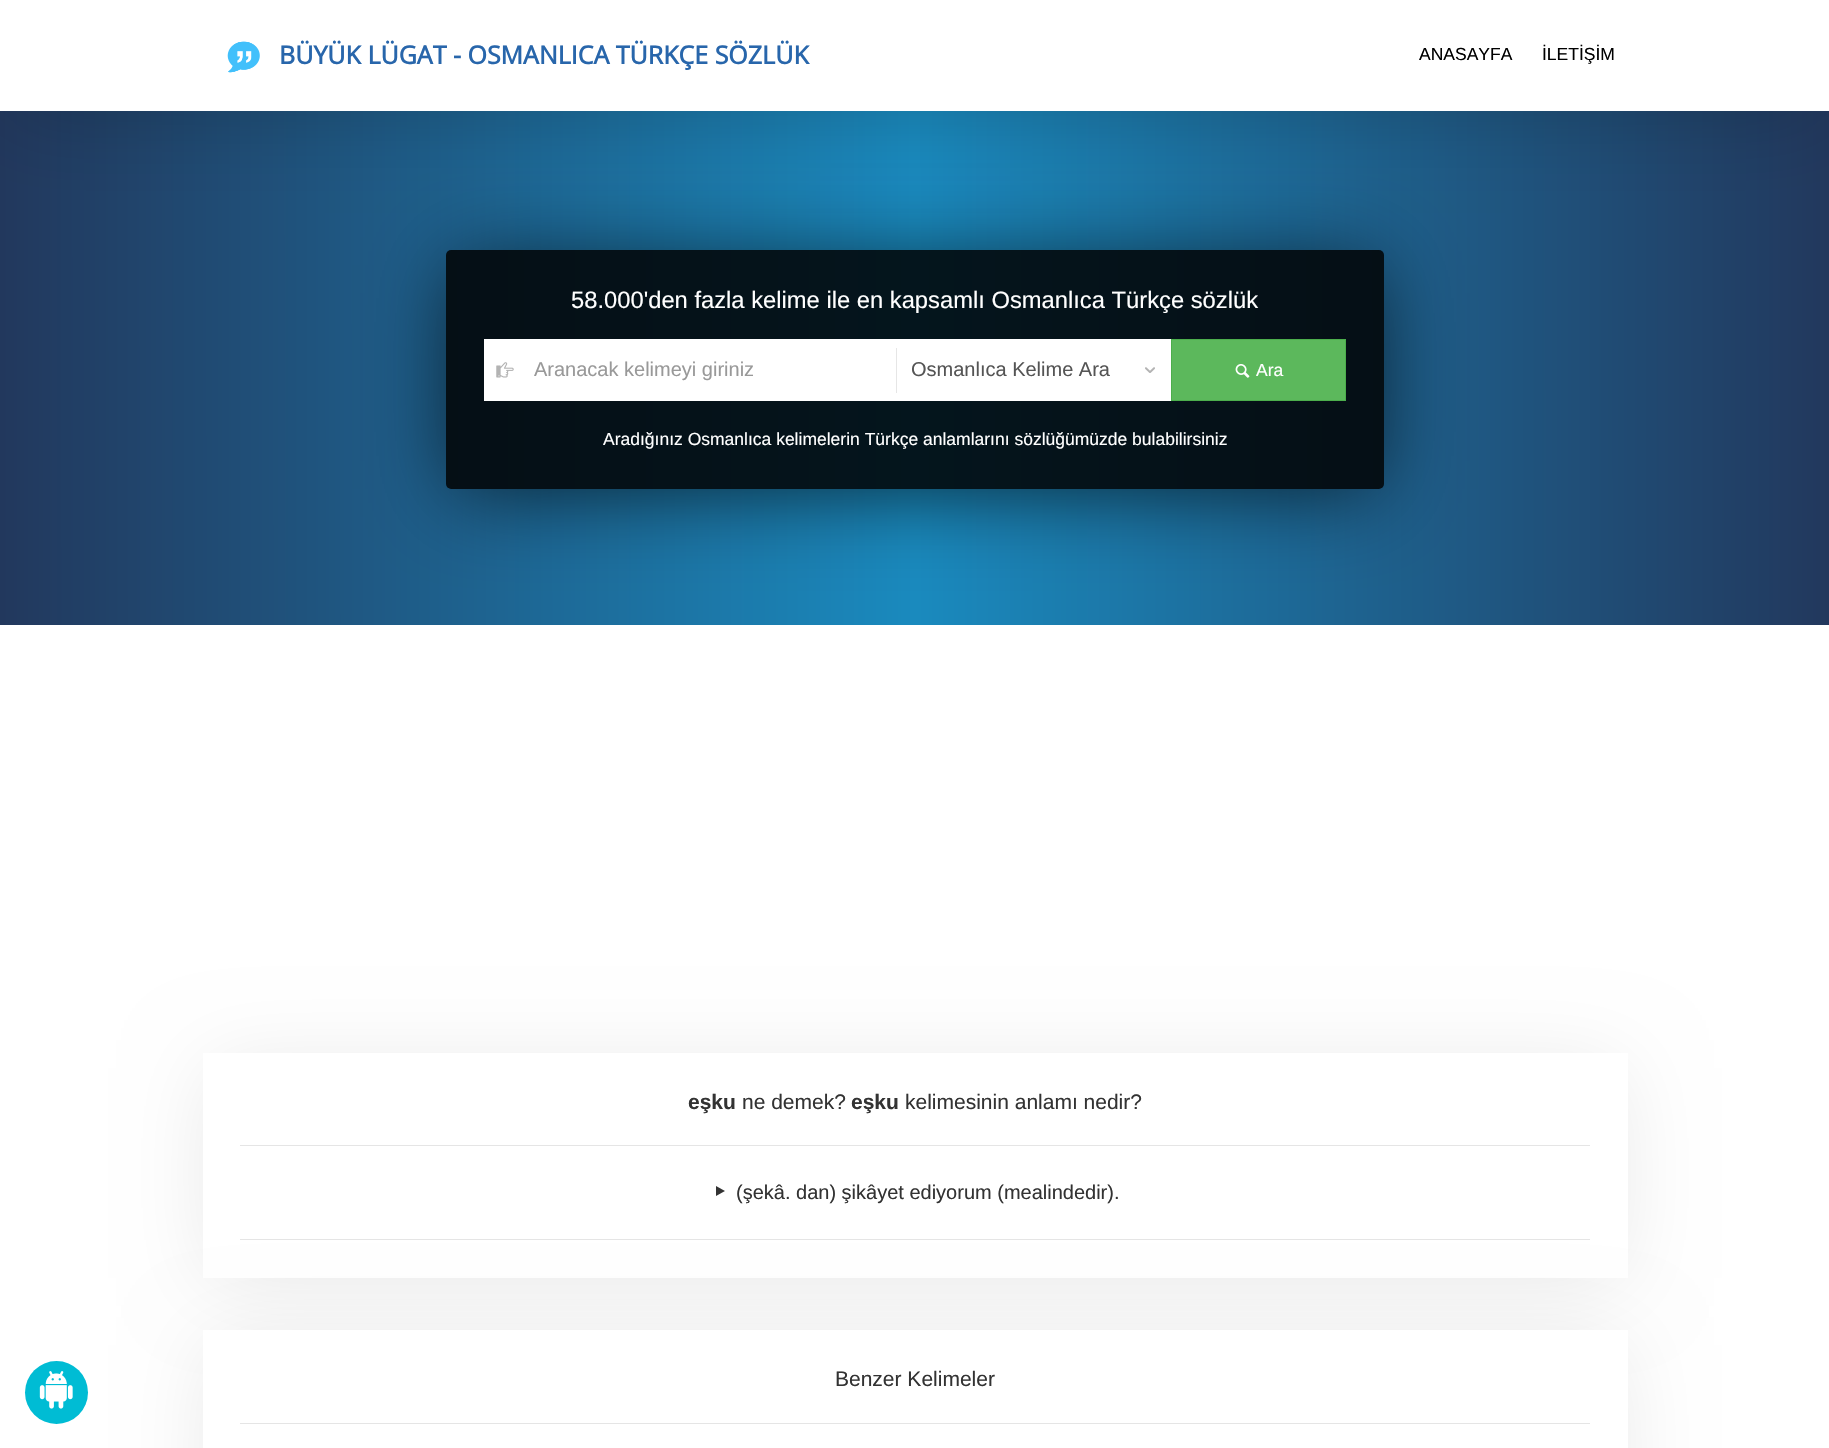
static SkFont makeFont(const char* family, int weight, float size, bool italic = false) {
  SkFontStyle style(weight, SkFontStyle::kNormal_Width,
    italic ? SkFontStyle::kItalic_Slant : SkFontStyle::kUpright_Slant);
  SkFont result(fontMgr->matchFamilyStyle(family, style), size);
  result.setSubpixel(true);
  return result;
}

static void text(SkCanvas* c, const char* s, float x, float y, const SkFont& font, SkColor color) {
  SkPaint ink(SkColor4f::FromColor(color));
  ink.setAntiAlias(true);
  c->drawString(s, x, y, font, ink);
}

static void box(SkCanvas* c, float l, float t, float r, float b, SkColor color) {
  SkPaint ink(SkColor4f::FromColor(color));
  ink.setAntiAlias(true);
  c->drawRect(SkRect::MakeLTRB(l, t, r, b), ink);
}

static void roundBox(SkCanvas* c, float l, float t, float r, float b, float radius, SkColor color) {
  SkPaint ink(SkColor4f::FromColor(color));
  ink.setAntiAlias(true);
  c->drawRoundRect(SkRect::MakeLTRB(l, t, r, b), radius, radius, ink);
}

static void picture(SkCanvas* c, const char* path, float l, float t, float r, float b) {
  auto image = SkImages::DeferredFromEncodedData(SkData::MakeFromFileName(path));
  c->drawImageRect(image, SkRect::MakeLTRB(l, t, r, b), SkSamplingOptions());
}

void draw(SkCanvas* c) {
  SkPaint paint;
  paint.setAntiAlias(true);
  c->clear(0xffffffff);
  {
    const SkColor colors[] = {0xff22385d, 0xff1a8abe, 0xff22385d};
    const float stops[] = {0, 0.5f, 1};
    const SkPoint ends[] = {{0, 313}, {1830, 312}};
    paint.setShader(SkGradientShader::MakeLinear(ends, colors, stops, 3, SkTileMode::kClamp));
    paint.setAlpha(255);
  }
  c->drawRect(SkRect::MakeLTRB(0, 111, 1829, 625), paint);
  paint.setShader(nullptr);
  paint.setColor(0x33000000);
  paint.setMaskFilter(SkMaskFilter::MakeBlur(kNormal_SkBlurStyle, 42.5f));
  c->drawRect(SkRect::MakeLTRB(8, 15, 1823, 111), paint);
  paint.setMaskFilter(nullptr);
  box(c, 0, 0, 1829, 111, 0xffffffff);
  picture(c, "img_01.png", 227, 41, 260, 73);
  SkFont face1 = makeFont("Open Sans", 700, 25);
  text(c, "BÜYÜK LÜGAT - OSMANLICA TÜRKÇE SÖZLÜK", 279, 64, face1, 0xff2866ab);
  SkFont face2 = makeFont("Liberation Sans", 400, 17.5f);
  text(c, "ANASAYFA", 1419, 60, face2, 0xff000000);
  text(c, "İLETİŞİM", 1542, 60, face2, 0xff000000);
  c->save();
  c->clipPath(SkPathBuilder(SkPathFillType::kEvenOdd).moveTo(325, 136).lineTo(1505, 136).lineTo(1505, 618).lineTo(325, 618).close().moveTo(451, 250).lineTo(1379, 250).cubicTo(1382, 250, 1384, 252, 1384, 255).lineTo(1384, 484).cubicTo(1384, 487, 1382, 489, 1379, 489).lineTo(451, 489).cubicTo(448, 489, 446, 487, 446, 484).lineTo(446, 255).cubicTo(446, 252, 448, 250, 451, 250).close().detach(), true);
  paint.setColor(0xb3000000);
  paint.setMaskFilter(SkMaskFilter::MakeBlur(kNormal_SkBlurStyle, 42.5f));
  c->drawRect(SkRect::MakeLTRB(454, 265, 1376, 489), paint);
  paint.setMaskFilter(nullptr);
  c->restore();
  roundBox(c, 446, 250, 1384, 489, 5, 0xd9000000);
  SkFont face3 = makeFont("Liberation Sans", 400, 23.75f);
  text(c, "58.000'den fazla kelime ile en kapsamlı Osmanlıca Türkçe sözlük", 571, 308, face3, 0xffffffff);
  box(c, 484, 339, 1171, 401, 0xffffffff);
  picture(c, "img_02.png", 496, 362, 514, 378);
  SkFont face4 = makeFont("Liberation Sans", 400, 20);
  text(c, "Aranacak kelimeyi giriniz", 534, 376, face4, 0xff999999);
  box(c, 896, 348, 897, 393, 0xffe6e6e6);
  text(c, "Osmanlıca Kelime Ara", 911, 376, face4, 0xff555555);
  picture(c, "img_03.png", 1145, 367, 1155, 373);
  paint.setColor(0xff5cb85c);
  c->drawRect(SkRect::MakeLTRB(1171.5f, 339.5f, 1345.5f, 400.5f), paint);
  paint.setStyle(SkPaint::kStroke_Style);
  paint.setStrokeWidth(1);
  paint.setColor(0xff4cae4c);
  c->drawRect(SkRect::MakeLTRB(1171.5f, 339.5f, 1345.5f, 400.5f), paint);
  picture(c, "img_04.png", 1235, 364, 1250, 378);
  text(c, "Ara", 1256, 376, face2, 0xffffffff);
  text(c, "Aradığınız Osmanlıca kelimelerin Türkçe anlamlarını sözlüğümüzde bulabilirsiniz", 603, 445, face2, 0xffffffff);
  paint.setStyle(SkPaint::kFill_Style);
  paint.setColor(0x17000000);
  paint.setMaskFilter(SkMaskFilter::MakeBlur(kNormal_SkBlurStyle, 42.5f));
  c->drawRect(SkRect::MakeLTRB(210, 1068, 1620, 1278), paint);
  paint.setMaskFilter(nullptr);
  box(c, 203, 1053, 1628, 1278, 0xffffffff);
  box(c, 240, 1239, 1590, 1240, 0xffe5e5e5);
  paint.setMaskFilter(SkMaskFilter::MakeBlur(kNormal_SkBlurStyle, 42.5f));
  c->drawRect(SkRect::MakeLTRB(210, 1345, 1620, 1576), paint);
  paint.setMaskFilter(nullptr);
  paint.setColor(0xff00bcd4);
  c->drawCircle(56.5f, 1392.5f, 31.5f, paint);
  picture(c, "img_05.png", 39, 1371, 73, 1409);
  SkFont face5 = makeFont("Liberation Sans", 700, 21);
  text(c, "eşku", 688, 1109, face5, 0xff333333);
  SkFont face6 = makeFont("Liberation Sans", 400, 21);
  text(c, "ne demek?", 742, 1109, face6, 0xff333333);
  text(c, "eşku", 851, 1109, face5, 0xff333333);
  text(c, "kelimesinin anlamı nedir?", 905, 1109, face6, 0xff333333);
  box(c, 240, 1145, 1590, 1146, 0xffe5e5e5);
  paint.setColor(0xff333333);
  c->drawPath(SkPathBuilder().moveTo(725, 1191).lineTo(716, 1196).lineTo(716, 1186).close().detach(), paint);
  text(c, "(şekâ. dan) şikâyet ediyorum (mealindedir).", 736, 1199, face4, 0xff333333);
  box(c, 203, 1330, 1628, 1448, 0xffffffff);
  text(c, "Benzer Kelimeler", 835, 1386, face6, 0xff333333);
  box(c, 240, 1423, 1590, 1424, 0xffe5e5e5);
}
